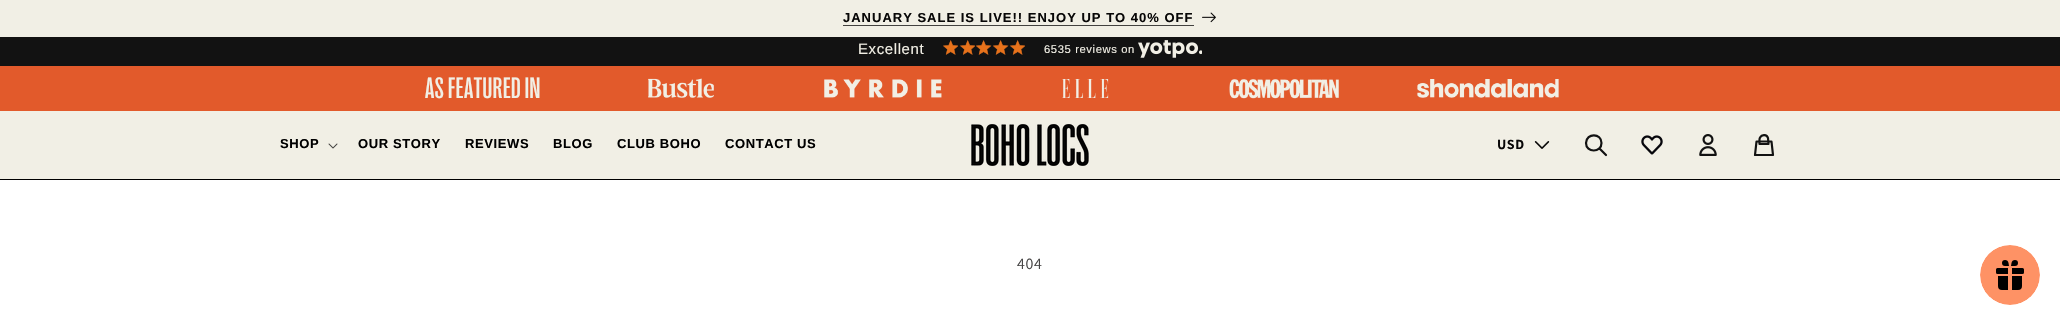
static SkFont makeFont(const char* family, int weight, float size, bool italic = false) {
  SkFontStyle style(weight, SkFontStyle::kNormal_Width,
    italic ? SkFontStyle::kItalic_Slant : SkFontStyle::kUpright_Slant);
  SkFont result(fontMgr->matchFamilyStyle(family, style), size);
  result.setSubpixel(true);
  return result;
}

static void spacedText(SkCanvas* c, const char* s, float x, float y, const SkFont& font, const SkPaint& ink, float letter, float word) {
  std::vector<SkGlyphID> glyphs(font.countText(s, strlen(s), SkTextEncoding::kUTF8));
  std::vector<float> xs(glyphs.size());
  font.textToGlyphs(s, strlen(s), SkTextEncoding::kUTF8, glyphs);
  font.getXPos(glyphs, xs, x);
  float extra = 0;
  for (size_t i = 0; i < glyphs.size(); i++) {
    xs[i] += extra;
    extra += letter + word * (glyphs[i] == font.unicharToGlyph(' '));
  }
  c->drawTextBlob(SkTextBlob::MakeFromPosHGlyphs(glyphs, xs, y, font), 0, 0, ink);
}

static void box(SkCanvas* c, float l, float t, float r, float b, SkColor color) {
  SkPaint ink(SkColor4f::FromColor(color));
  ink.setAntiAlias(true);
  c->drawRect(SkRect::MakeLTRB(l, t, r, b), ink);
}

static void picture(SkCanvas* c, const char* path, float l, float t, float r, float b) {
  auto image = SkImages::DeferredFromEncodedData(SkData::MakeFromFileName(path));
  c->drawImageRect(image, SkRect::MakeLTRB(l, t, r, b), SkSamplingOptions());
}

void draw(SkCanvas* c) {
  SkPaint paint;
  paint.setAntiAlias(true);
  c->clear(0xffffffff);
  box(c, 0, 0, 2060, 37, 0xfff1efe5);
  SkFont face1 = makeFont("Liberation Sans", 700, 13);
  paint.setColor(0xff080707);
  spacedText(c, "JANUARY SALE IS LIVE!! ENJOY UP TO 40% OFF", 843, 22, face1, paint, 1, 0);
  box(c, 843, 25, 1194, 26, 0xff42413f);
  picture(c, "img_01.png", 1202, 12, 1216, 23);
  box(c, 0, 37, 2060, 66, 0xff121212);
  SkFont face2 = makeFont("Liberation Sans", 400, 15);
  paint.setColor(0xfff1efe5);
  spacedText(c, "Excellent", 858, 54, face2, paint, 0.6f, 0);
  picture(c, "img_02.png", 943, 40, 958, 55);
  picture(c, "img_03.png", 960, 40, 975, 55);
  picture(c, "img_04.png", 976, 40, 992, 55);
  picture(c, "img_05.png", 993, 40, 1009, 55);
  picture(c, "img_06.png", 1010, 40, 1025, 55);
  SkFont face3 = makeFont("Liberation Sans", 400, 11.25f);
  spacedText(c, "6535 reviews on", 1044, 53, face3, paint, 0.6f, 0);
  picture(c, "img_07.png", 1138, 40, 1202, 58);
  box(c, 0, 66, 2060, 111, 0xffe25a2b);
  SkFont face4 = makeFont("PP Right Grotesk", 500, 30);
  spacedText(c, "AS FEATURED IN", 425, 98, face4, paint, 0.6f, 0);
  picture(c, "img_08.png", 648, 78, 714, 98);
  picture(c, "img_09.png", 824, 79, 942, 98);
  picture(c, "img_10.png", 1062, 79, 1109, 98);
  picture(c, "img_11.png", 1229, 79, 1339, 99);
  picture(c, "img_12.png", 1417, 79, 1559, 98);
  box(c, 0, 111, 2060, 179, 0xfff1efe5);
  box(c, 0, 179, 2060, 180, 0xff000000);
  paint.setColor(0xff000000);
  spacedText(c, "SHOP", 280, 148, face1, paint, 0.6f, 0);
  picture(c, "img_13.png", 328, 143, 338, 149);
  spacedText(c, "OUR STORY", 358, 148, face1, paint, 0.6f, 0);
  spacedText(c, "REVIEWS", 465, 148, face1, paint, 0.6f, 0);
  spacedText(c, "BLOG", 553, 148, face1, paint, 0.6f, 0);
  spacedText(c, "CLUB BOHO", 617, 148, face1, paint, 0.6f, 0);
  spacedText(c, "CONTACT US", 725, 148, face1, paint, 0.6f, 0);
  picture(c, "img_14.png", 971, 124, 1089, 166);
  SkFont face5 = makeFont("Assistant", 700, 14);
  paint.setColor(0xff080707);
  spacedText(c, "USD", 1497, 149, face5, paint, 0.6f, 0);
  picture(c, "img_15.png", 1534, 141, 1550, 149);
  paint.setStyle(SkPaint::kStroke_Style);
  paint.setStrokeWidth(2.2f);
  paint.setStrokeCap(SkPaint::kRound_Cap);
  paint.setStrokeJoin(SkPaint::kRound_Join);
  paint.setColor(0xff121212);
  c->drawPath(SkPathBuilder().moveTo(1601.5f, 143).cubicTo(1601.5f, 153, 1586, 153, 1586, 143).cubicTo(1586.5f, 132.5f, 1601.5f, 133, 1601.5f, 143).close().moveTo(1606, 155).lineTo(1599.5f, 148.5f).close().detach(), paint);
  picture(c, "img_16.png", 1641, 135, 1663, 155);
  picture(c, "img_17.png", 1699, 134, 1717, 156);
  c->save();
  c->clipRect(SkRect::MakeLTRB(1753, 134, 1775, 156));
  c->drawPath(SkPathBuilder().moveTo(1756.5f, 141.5f).lineTo(1771.5f, 141.5f).lineTo(1773, 155).lineTo(1755, 155).close().moveTo(1768.5f, 144).lineTo(1768, 138).cubicTo(1767, 134.5f, 1762, 134, 1760, 137.5f).cubicTo(1759, 139.5f, 1759.5f, 142, 1759.5f, 144).close().detach(), paint);
  c->restore();
  SkFont face6 = makeFont("Assistant", 400, 16);
  paint.setStyle(SkPaint::kFill_Style);
  paint.setColor(0xff464545);
  spacedText(c, "404", 1017, 269, face6, paint, 0.6f, 0);
  picture(c, "img_18.png", 1980, 245, 2040, 305);
}
